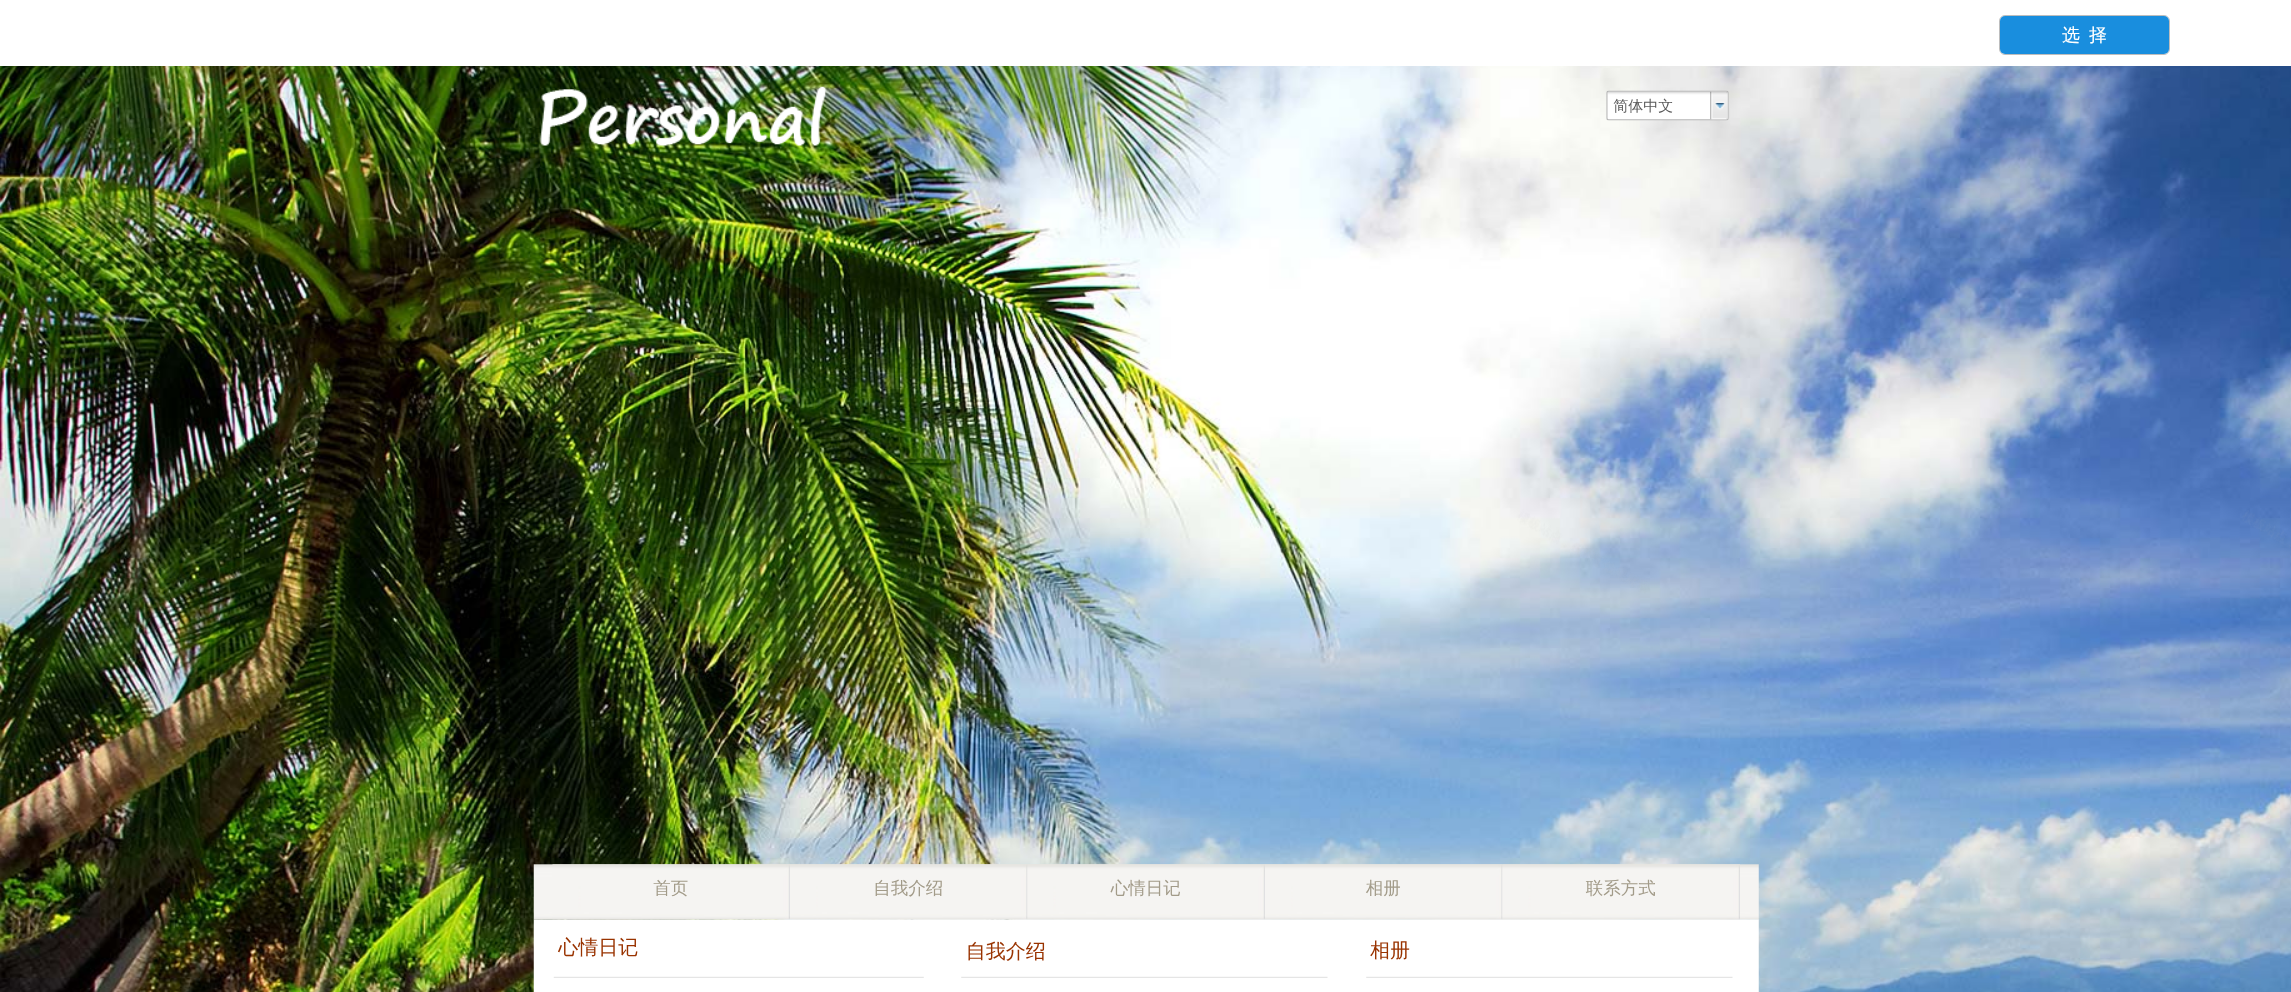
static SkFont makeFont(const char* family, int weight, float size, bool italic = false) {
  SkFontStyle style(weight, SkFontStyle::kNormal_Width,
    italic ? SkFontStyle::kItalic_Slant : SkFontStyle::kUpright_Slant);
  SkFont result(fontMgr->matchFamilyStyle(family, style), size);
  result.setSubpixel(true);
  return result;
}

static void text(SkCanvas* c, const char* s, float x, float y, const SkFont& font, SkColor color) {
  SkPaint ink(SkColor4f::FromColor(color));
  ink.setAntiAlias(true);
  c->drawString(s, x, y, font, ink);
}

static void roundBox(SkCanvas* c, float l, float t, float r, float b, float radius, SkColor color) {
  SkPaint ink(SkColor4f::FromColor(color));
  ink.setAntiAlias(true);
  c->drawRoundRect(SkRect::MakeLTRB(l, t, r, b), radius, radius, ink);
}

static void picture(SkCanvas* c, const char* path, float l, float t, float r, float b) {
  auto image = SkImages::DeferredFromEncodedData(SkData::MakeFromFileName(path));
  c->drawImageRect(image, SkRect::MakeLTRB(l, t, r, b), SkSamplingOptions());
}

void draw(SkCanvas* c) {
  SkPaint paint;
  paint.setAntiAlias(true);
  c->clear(0xffffffff);
  paint.setStyle(SkPaint::kStroke_Style);
  paint.setStrokeWidth(1);
  paint.setColor(0xffbdbdbd);
  c->drawRoundRect(SkRect::MakeLTRB(1999.5f, 15.5f, 2169.5f, 54.5f), 5.5f, 5.5f, paint);
  roundBox(c, 2000, 16, 2169, 54, 5, 0xff198ede);
  SkFont face1 = makeFont("WenQuanYi Zen Hei", 500, 18);
  text(c, "选", 2062, 41, face1, 0xffffffff);
  text(c, "择", 2089, 41, face1, 0xffffffff);
  picture(c, "img_01.png", 0, 66, 2291, 992);
}
